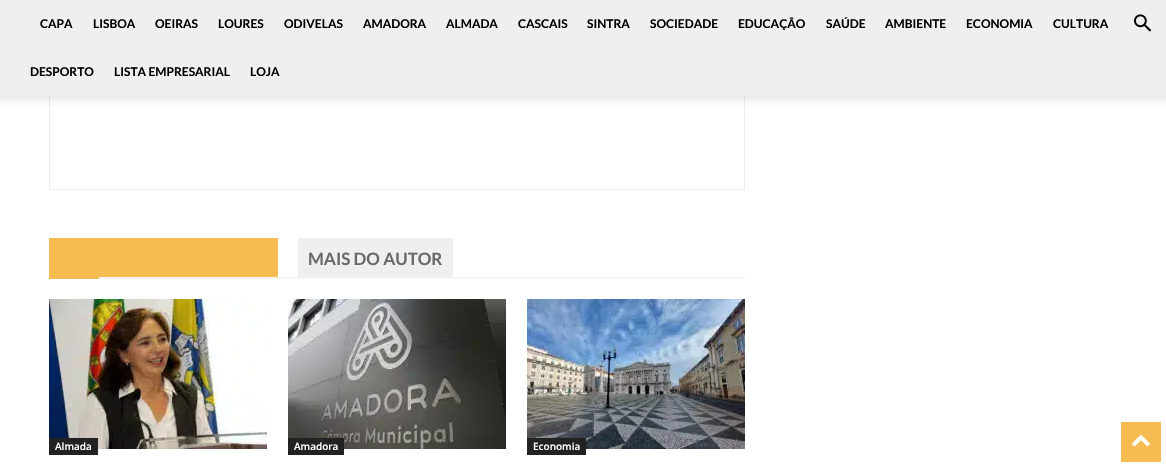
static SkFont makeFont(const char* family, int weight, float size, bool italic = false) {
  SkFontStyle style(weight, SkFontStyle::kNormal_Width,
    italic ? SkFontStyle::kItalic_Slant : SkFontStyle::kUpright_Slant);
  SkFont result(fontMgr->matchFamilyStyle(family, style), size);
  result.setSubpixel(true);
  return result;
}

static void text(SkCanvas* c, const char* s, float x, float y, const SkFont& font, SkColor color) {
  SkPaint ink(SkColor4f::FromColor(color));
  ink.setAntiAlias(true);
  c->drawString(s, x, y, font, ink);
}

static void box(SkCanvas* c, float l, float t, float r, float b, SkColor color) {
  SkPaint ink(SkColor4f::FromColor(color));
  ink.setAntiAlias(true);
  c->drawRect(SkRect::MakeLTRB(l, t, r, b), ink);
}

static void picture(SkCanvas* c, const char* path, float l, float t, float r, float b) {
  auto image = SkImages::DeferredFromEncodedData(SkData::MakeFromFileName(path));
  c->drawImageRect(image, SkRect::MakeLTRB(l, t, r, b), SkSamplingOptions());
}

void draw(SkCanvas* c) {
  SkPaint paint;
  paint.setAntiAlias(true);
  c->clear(0xffffffff);
  paint.setStyle(SkPaint::kStroke_Style);
  paint.setStrokeWidth(1);
  paint.setColor(0xffededed);
  c->drawRect(SkRect::MakeLTRB(49.5f, 50.5f, 744.5f, 189.5f), paint);
  box(c, 0, 0, 1166, 96, 0xffefeff0);
  SkFont face1 = makeFont("Lato", 700, 12);
  text(c, "CAPA", 40, 28, face1, 0xff000000);
  text(c, "LISBOA", 93, 28, face1, 0xff000000);
  text(c, "OEIRAS", 155, 28, face1, 0xff000000);
  text(c, "LOURES", 218, 28, face1, 0xff000000);
  text(c, "ODIVELAS", 284, 28, face1, 0xff000000);
  text(c, "AMADORA", 363, 28, face1, 0xff000000);
  text(c, "ALMADA", 446, 28, face1, 0xff000000);
  text(c, "CASCAIS", 518, 28, face1, 0xff000000);
  text(c, "SINTRA", 587, 28, face1, 0xff000000);
  text(c, "SOCIEDADE", 650, 28, face1, 0xff000000);
  text(c, "EDUCAÇÃO", 738, 28, face1, 0xff000000);
  text(c, "SAÚDE", 826, 28, face1, 0xff000000);
  text(c, "AMBIENTE", 885, 28, face1, 0xff000000);
  text(c, "ECONOMIA", 966, 28, face1, 0xff000000);
  text(c, "CULTURA", 1053, 28, face1, 0xff000000);
  text(c, "DESPORTO", 30, 76, face1, 0xff000000);
  text(c, "LISTA EMPRESARIAL", 114, 76, face1, 0xff000000);
  text(c, "LOJA", 250, 76, face1, 0xff000000);
  picture(c, "img_01.png", 1134, 14, 1151, 32);
  picture(c, "img_02.png", 0, 96, 1166, 105);
  box(c, 49, 238, 278, 277, 0xfff6bb51);
  box(c, 298, 238, 453, 277, 0xffefeff0);
  SkFont face2 = makeFont("Lato", 700, 17);
  text(c, "MAIS DO AUTOR", 308, 265, face2, 0xff696969);
  box(c, 49, 277, 99, 279, 0xfff6bb51);
  box(c, 99, 277, 745, 279, 0xfff5f5f5);
  picture(c, "img_03.png", 49, 299, 267, 449);
  box(c, 49, 438, 98, 455, 0xff222222);
  SkFont face3 = makeFont("Open Sans", 600, 10);
  text(c, "Almada", 55, 450, face3, 0xffffffff);
  picture(c, "img_04.png", 288, 299, 506, 449);
  box(c, 288, 438, 344, 455, 0xff222222);
  text(c, "Amadora", 294, 450, face3, 0xffffffff);
  picture(c, "img_05.png", 527, 299, 745, 449);
  box(c, 527, 438, 586, 455, 0xff222222);
  text(c, "Economia", 533, 450, face3, 0xffffffff);
  box(c, 1121, 422, 1161, 462, 0xfff6bb51);
  picture(c, "img_06.png", 1132, 434, 1150, 447);
}
